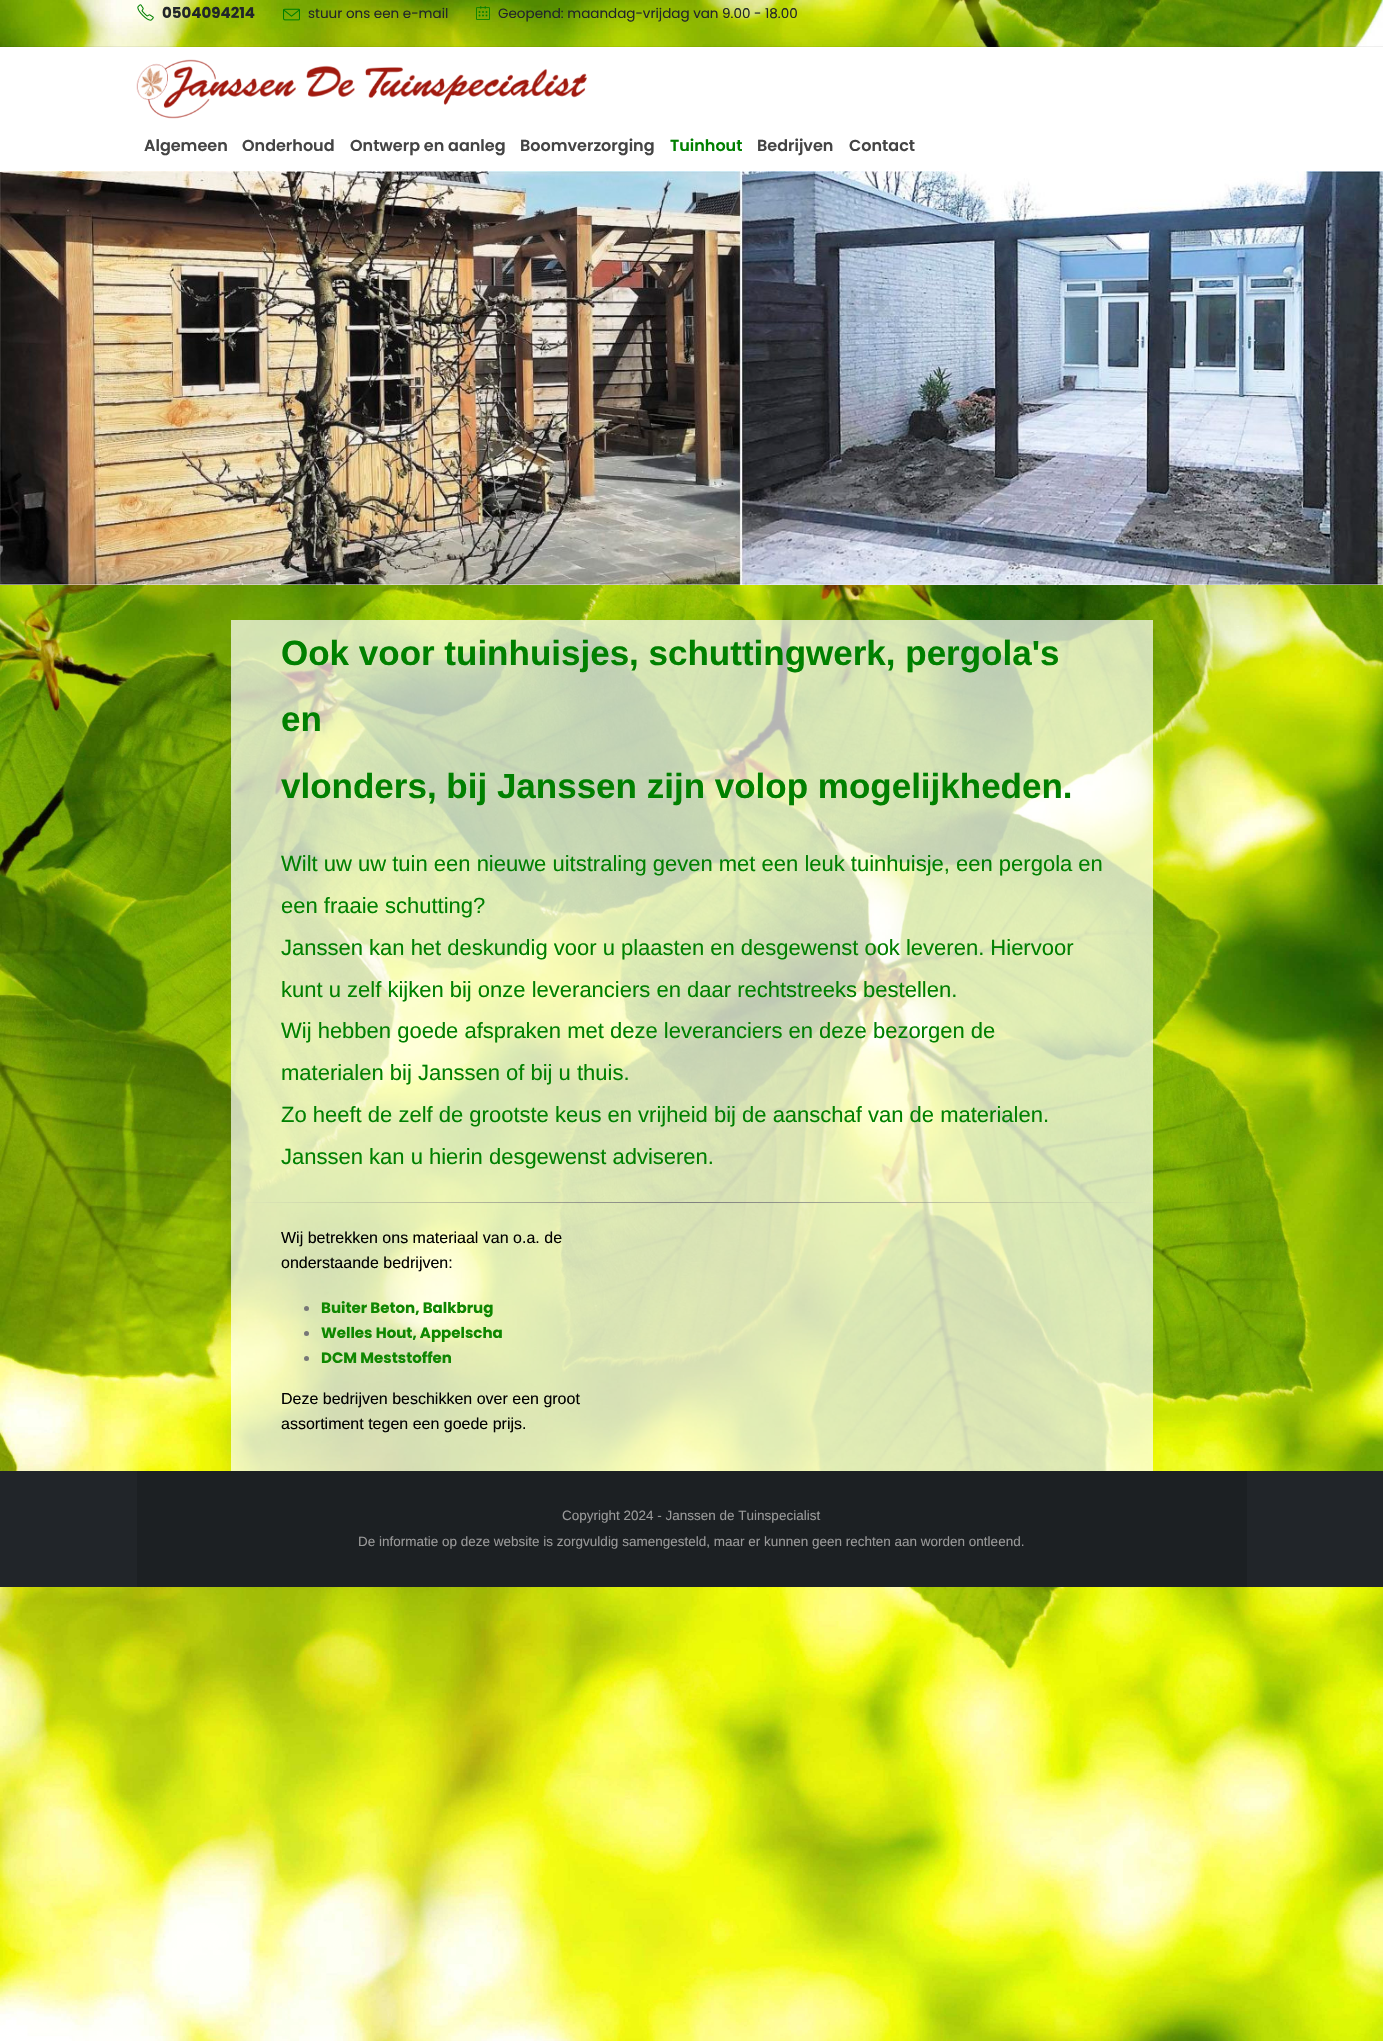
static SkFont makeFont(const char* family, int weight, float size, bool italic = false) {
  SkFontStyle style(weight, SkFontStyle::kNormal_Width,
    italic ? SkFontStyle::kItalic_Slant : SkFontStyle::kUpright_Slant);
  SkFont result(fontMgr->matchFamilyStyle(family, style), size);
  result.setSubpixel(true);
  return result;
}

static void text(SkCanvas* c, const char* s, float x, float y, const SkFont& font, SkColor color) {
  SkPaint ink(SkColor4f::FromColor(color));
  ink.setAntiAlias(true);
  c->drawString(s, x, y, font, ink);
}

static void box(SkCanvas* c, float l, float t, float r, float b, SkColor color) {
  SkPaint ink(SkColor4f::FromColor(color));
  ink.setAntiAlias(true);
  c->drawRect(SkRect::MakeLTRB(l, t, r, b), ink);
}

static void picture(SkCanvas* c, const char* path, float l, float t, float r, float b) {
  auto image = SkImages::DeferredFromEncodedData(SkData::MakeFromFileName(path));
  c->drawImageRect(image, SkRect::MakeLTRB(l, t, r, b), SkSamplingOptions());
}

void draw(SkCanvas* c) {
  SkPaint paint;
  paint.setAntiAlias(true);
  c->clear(0xffffffff);
  picture(c, "img_01.png", 0, 0, 1383, 2041);
  box(c, 0, 46, 1383, 47, 0x0f000000);
  picture(c, "img_02.png", 137, 4, 154, 21);
  SkFont face1 = makeFont("Poppins", 700, 15);
  text(c, "0504094214", 162, 18, face1, 0xff212529);
  picture(c, "img_03.png", 283, 8, 300, 21);
  SkFont face2 = makeFont("Poppins", 400, 13.5f);
  text(c, "stuur ons een e-mail", 308, 18, face2, 0xff212529);
  picture(c, "img_04.png", 476, 6, 490, 20);
  text(c, "Geopend: maandag-vrijdag van 9.00 - 18.00", 498, 18, face2, 0xff212529);
  box(c, 0, 47, 1383, 171, 0xffffffff);
  picture(c, "img_05.png", 136, 59, 587, 119);
  SkFont face3 = makeFont("Poppins", 600, 16);
  text(c, "Algemeen", 144, 151, face3, 0xff444444);
  text(c, "Onderhoud", 242, 151, face3, 0xff444444);
  text(c, "Ontwerp en aanleg", 350, 151, face3, 0xff444444);
  text(c, "Boomverzorging", 520, 151, face3, 0xff444444);
  text(c, "Tuinhout", 670, 151, face3, 0xff008000);
  text(c, "Bedrijven", 757, 151, face3, 0xff444444);
  text(c, "Contact", 849, 151, face3, 0xff444444);
  picture(c, "img_06.png", 0, 171, 1383, 585);
  box(c, 231, 620, 1153, 1225, 0xb3ffffff);
  SkFont face4 = makeFont("Liberation Sans", 700, 35);
  text(c, "Ook voor tuinhuisjes, schuttingwerk, pergola's", 281, 665, face4, 0xff008000);
  text(c, "en", 281, 731, face4, 0xff008000);
  text(c, "vlonders, bij Janssen zijn volop mogelijkheden.", 281, 798, face4, 0xff008000);
  SkFont face5 = makeFont("Liberation Sans", 400, 22);
  text(c, "Wilt uw uw tuin een nieuwe uitstraling geven met een leuk tuinhuisje, een pergola en", 281, 871, face5, 0xff008000);
  text(c, "een fraaie schutting?", 281, 913, face5, 0xff008000);
  text(c, "Janssen kan het deskundig voor u plaasten en desgewenst ook leveren. Hiervoor", 281, 955, face5, 0xff008000);
  text(c, "kunt u zelf kijken bij onze leveranciers en daar rechtstreeks bestellen.", 281, 997, face5, 0xff008000);
  text(c, "Wij hebben goede afspraken met deze leveranciers en deze bezorgen de", 281, 1038, face5, 0xff008000);
  text(c, "materialen bij Janssen of bij u thuis.", 281, 1080, face5, 0xff008000);
  text(c, "Zo heeft de zelf de grootste keus en vrijheid bij de aanschaf van de materialen.", 281, 1122, face5, 0xff008000);
  text(c, "Janssen kan u hierin desgewenst adviseren.", 281, 1164, face5, 0xff008000);
  box(c, 231, 1202, 1153, 1203, 0x0fffffff);
  {
    const SkColor colors[] = {0x00808080, 0xff808080, 0x00808080};
    const float stops[] = {0, 0.5f, 1};
    const SkPoint ends[] = {{231, 1203}, {1153, 1203}};
    paint.setShader(SkGradientShader::MakeLinear(ends, colors, stops, 3, SkTileMode::kClamp));
    paint.setAlpha(255);
  }
  c->drawRect(SkRect::MakeLTRB(241, 1202, 1143, 1203), paint);
  box(c, 231, 1225, 692, 1471, 0xb3ffffff);
  SkFont face6 = makeFont("Liberation Sans", 400, 16);
  text(c, "Wij betrekken ons materiaal van o.a. de", 281, 1243, face6, 0xff000000);
  text(c, "onderstaande bedrijven:", 281, 1268, face6, 0xff000000);
  paint.setShader(nullptr);
  paint.setColor(0xff777777);
  c->drawCircle(306.5f, 1308.5f, 2.5f, paint);
  text(c, "Buiter Beton, Balkbrug", 321, 1313, face1, 0xff0f8700);
  c->drawCircle(306.5f, 1333.5f, 2.5f, paint);
  text(c, "Welles Hout, Appelscha", 321, 1338, face1, 0xff0f8700);
  c->drawCircle(306.5f, 1358.5f, 2.5f, paint);
  text(c, "DCM Meststoffen", 321, 1363, face1, 0xff0f8700);
  text(c, "Deze bedrijven beschikken over een groot", 281, 1404, face6, 0xff000000);
  text(c, "assortiment tegen een goede prijs.", 281, 1429, face6, 0xff000000);
  box(c, 692, 1225, 1153, 1471, 0xb3ffffff);
  box(c, 0, 1471, 1383, 1587, 0xff212529);
  box(c, 137, 1471, 1247, 1587, 0xff1c2023);
  SkFont face7 = makeFont("Liberation Sans", 400, 13.5f);
  text(c, "Copyright 2024 - Janssen de Tuinspecialist", 562, 1520, face7, 0xff999999);
  text(c, "De informatie op deze website is zorgvuldig samengesteld, maar er kunnen geen rechten aan worden ontleend.", 358, 1546, face7, 0xff999999);
}
